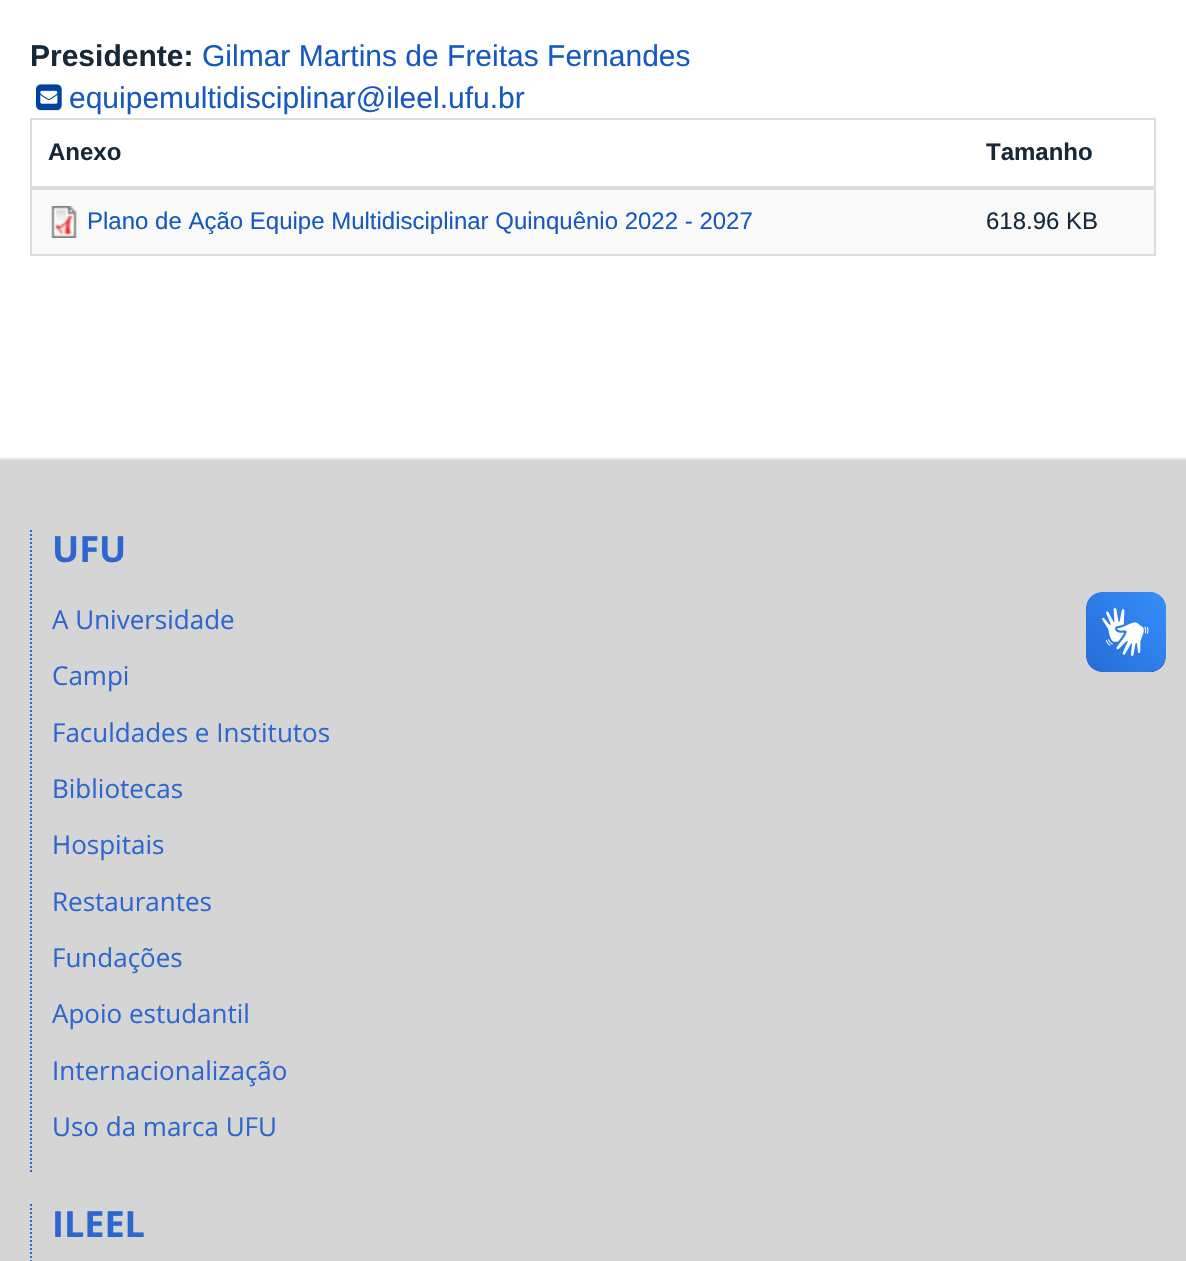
static SkFont makeFont(const char* family, int weight, float size, bool italic = false) {
  SkFontStyle style(weight, SkFontStyle::kNormal_Width,
    italic ? SkFontStyle::kItalic_Slant : SkFontStyle::kUpright_Slant);
  SkFont result(fontMgr->matchFamilyStyle(family, style), size);
  result.setSubpixel(true);
  return result;
}

static void text(SkCanvas* c, const char* s, float x, float y, const SkFont& font, SkColor color) {
  SkPaint ink(SkColor4f::FromColor(color));
  ink.setAntiAlias(true);
  c->drawString(s, x, y, font, ink);
}

static void box(SkCanvas* c, float l, float t, float r, float b, SkColor color) {
  SkPaint ink(SkColor4f::FromColor(color));
  ink.setAntiAlias(true);
  c->drawRect(SkRect::MakeLTRB(l, t, r, b), ink);
}

static void picture(SkCanvas* c, const char* path, float l, float t, float r, float b) {
  auto image = SkImages::DeferredFromEncodedData(SkData::MakeFromFileName(path));
  c->drawImageRect(image, SkRect::MakeLTRB(l, t, r, b), SkSamplingOptions());
}

void draw(SkCanvas* c) {
  SkPaint paint;
  paint.setAntiAlias(true);
  c->clear(0xffffffff);
  SkFont face1 = makeFont("Liberation Sans", 700, 30);
  text(c, "Presidente:", 30, 66, face1, 0xff172938);
  SkFont face2 = makeFont("Liberation Sans", 400, 30);
  text(c, "Gilmar Martins de Freitas Fernandes", 202, 66, face2, 0xff165abf);
  picture(c, "img_01.png", 36, 84, 62, 111);
  text(c, "equipemultidisciplinar@ileel.ufu.br", 69, 108, face2, 0xff165abf);
  paint.setStyle(SkPaint::kStroke_Style);
  paint.setStrokeWidth(2);
  paint.setColor(0xffdddddd);
  c->drawRect(SkRect::MakeLTRB(31, 119, 1155, 255), paint);
  SkFont face3 = makeFont("Liberation Sans", 700, 24);
  text(c, "Anexo", 48, 160, face3, 0xff172938);
  box(c, 32, 186, 1154, 190, 0xffdddddd);
  text(c, "Tamanho", 986, 160, face3, 0xff172938);
  box(c, 32, 190, 1154, 254, 0xfff9f9f9);
  picture(c, "img_02.png", 51, 206, 77, 238);
  SkFont face4 = makeFont("Liberation Sans", 400, 24);
  text(c, "Plano de Ação Equipe Multidisciplinar Quinquênio 2022 - 2027", 87, 229, face4, 0xff165abf);
  text(c, "618.96 KB", 986, 229, face4, 0xff172938);
  box(c, 0, 460, 1186, 1261, 0xffd5d5d5);
  box(c, 0, 458, 1186, 460, 0xffe5e5e5);
  paint.setColor(0xff2c66ce);
  paint.setPathEffect(SkDashPathEffect::Make({{2, 2}}, 0));
  c->drawPath(SkPathBuilder().moveTo(31, 530).lineTo(31, 1174).detach(), paint);
  paint.setPathEffect(nullptr);
  SkFont face5 = makeFont("Open Sans", 700, 36);
  text(c, "UFU", 52, 562, face5, 0xff2c66ce);
  SkFont face6 = makeFont("Open Sans", 400, 26);
  text(c, "A Universidade", 52, 629, face6, 0xff2c66ce);
  text(c, "Campi", 52, 685, face6, 0xff2c66ce);
  text(c, "Faculdades e Institutos", 52, 742, face6, 0xff2c66ce);
  text(c, "Bibliotecas", 52, 798, face6, 0xff2c66ce);
  text(c, "Hospitais", 52, 854, face6, 0xff2c66ce);
  text(c, "Restaurantes", 52, 911, face6, 0xff2c66ce);
  text(c, "Fundações", 52, 967, face6, 0xff2c66ce);
  text(c, "Apoio estudantil", 52, 1023, face6, 0xff2c66ce);
  text(c, "Internacionalização", 52, 1080, face6, 0xff2c66ce);
  text(c, "Uso da marca UFU", 52, 1136, face6, 0xff2c66ce);
  paint.setPathEffect(SkDashPathEffect::Make({{2, 2}}, 0));
  c->drawPath(SkPathBuilder().moveTo(31, 1204).lineTo(31, 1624).detach(), paint);
  paint.setPathEffect(nullptr);
  text(c, "ILEEL", 52, 1237, face5, 0xff2c66ce);
  picture(c, "img_03.png", 1086, 592, 1166, 672);
  picture(c, "img_04.png", 1086, 592, 1166, 672);
}
